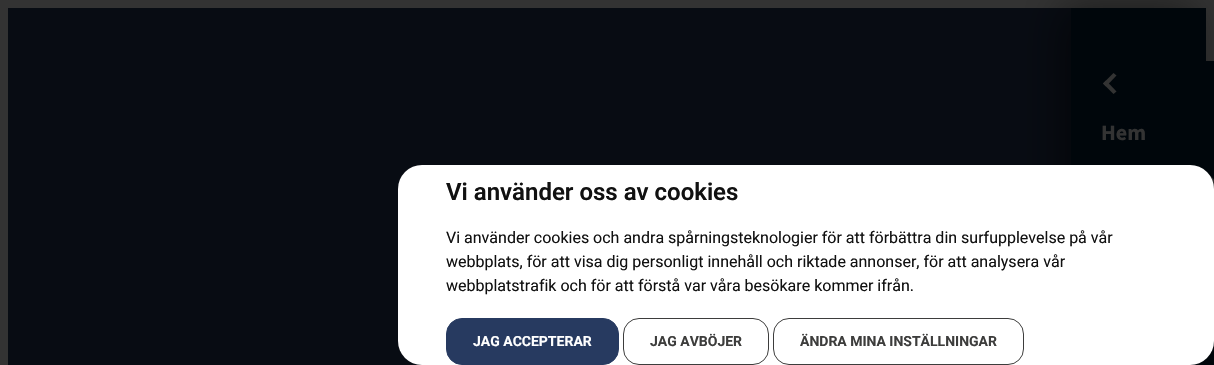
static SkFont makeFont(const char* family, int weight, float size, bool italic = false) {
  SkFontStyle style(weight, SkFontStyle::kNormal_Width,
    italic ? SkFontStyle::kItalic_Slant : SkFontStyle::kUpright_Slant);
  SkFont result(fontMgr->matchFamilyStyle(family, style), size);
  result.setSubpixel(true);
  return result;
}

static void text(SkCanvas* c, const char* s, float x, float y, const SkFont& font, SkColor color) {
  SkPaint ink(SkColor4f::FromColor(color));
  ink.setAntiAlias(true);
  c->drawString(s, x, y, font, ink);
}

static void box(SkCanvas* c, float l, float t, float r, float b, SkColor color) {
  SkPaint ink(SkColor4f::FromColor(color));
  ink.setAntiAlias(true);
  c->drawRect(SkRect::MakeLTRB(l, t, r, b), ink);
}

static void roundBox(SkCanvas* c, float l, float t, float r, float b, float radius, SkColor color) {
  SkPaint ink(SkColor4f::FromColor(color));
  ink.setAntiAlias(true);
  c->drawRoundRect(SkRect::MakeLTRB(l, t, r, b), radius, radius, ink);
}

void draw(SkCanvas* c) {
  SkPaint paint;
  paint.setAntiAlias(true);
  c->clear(0xff333333);
  box(c, 8, 8, 1071, 365, 0xff080c13);
  paint.setColor(0x80000000);
  paint.setMaskFilter(SkMaskFilter::MakeBlur(kNormal_SkBlurStyle, 20));
  c->drawRect(SkRect::MakeLTRB(1061, 8, 1196, 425), paint);
  paint.setMaskFilter(nullptr);
  box(c, 1071, 8, 1206, 165, 0xff00060b);
  box(c, 1081, 61, 1214, 365, 0xff00060b);
  paint.setColor(0xff333333);
  c->drawPath(SkPathBuilder().moveTo(1103, 83.5f).lineTo(1106, 80.5f).lineTo(1116.5f, 91.5f).lineTo(1113.5f, 94).close().detach(), paint);
  c->drawPath(SkPathBuilder().moveTo(1103, 83.5f).lineTo(1113.5f, 73).lineTo(1116.5f, 75.5f).lineTo(1106, 86.5f).close().detach(), paint);
  SkFont face1 = makeFont("Source Sans Pro", 700, 22);
  text(c, "Hem", 1101, 140, face1, 0xff333333);
  paint.setColor(0xff313131);
  c->drawPath(SkPathBuilder().moveTo(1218.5f, 184).lineTo(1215, 187.5f).lineTo(1204.5f, 177).lineTo(1208, 173.5f).close().detach(), paint);
  c->drawPath(SkPathBuilder().moveTo(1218.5f, 184).lineTo(1208, 194.5f).lineTo(1204.5f, 191).lineTo(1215, 180.5f).close().detach(), paint);
  roundBox(c, 398, 165, 1214, 365, 24, 0xffffffff);
  SkFont face2 = makeFont("Roboto", 600, 24);
  text(c, "Vi använder oss av cookies", 446, 200, face2, 0xff111111);
  SkFont face3 = makeFont("Roboto", 400, 16);
  text(c, "Vi använder cookies och andra spårningsteknologier för att förbättra din surfupplevelse på vår", 446, 243, face3, 0xff111111);
  text(c, "webbplats, för att visa dig personligt innehåll och riktade annonser, för att analysera vår", 446, 267, face3, 0xff111111);
  text(c, "webbplatstrafik och för att förstå var våra besökare kommer ifrån.", 446, 291, face3, 0xff111111);
  paint.setColor(0xff273a60);
  c->drawRoundRect(SkRect::MakeLTRB(446.5f, 318.5f, 618.5f, 364.5f), 15.5f, 15.5f, paint);
  paint.setStyle(SkPaint::kStroke_Style);
  paint.setStrokeWidth(1);
  c->drawRoundRect(SkRect::MakeLTRB(446.5f, 318.5f, 618.5f, 364.5f), 15.5f, 15.5f, paint);
  SkFont face4 = makeFont("Roboto", 700, 14);
  text(c, "JAG ACCEPTERAR", 473, 346, face4, 0xffffffff);
  paint.setColor(0xff3d3d3c);
  c->drawRoundRect(SkRect::MakeLTRB(623.5f, 318.5f, 768.5f, 364.5f), 15.5f, 15.5f, paint);
  text(c, "JAG AVBÖJER", 650, 346, face4, 0xff3d3d3c);
  c->drawRoundRect(SkRect::MakeLTRB(773.5f, 318.5f, 1023.5f, 364.5f), 15.5f, 15.5f, paint);
  text(c, "ÄNDRA MINA INSTÄLLNINGAR", 800, 346, face4, 0xff3d3d3c);
}
